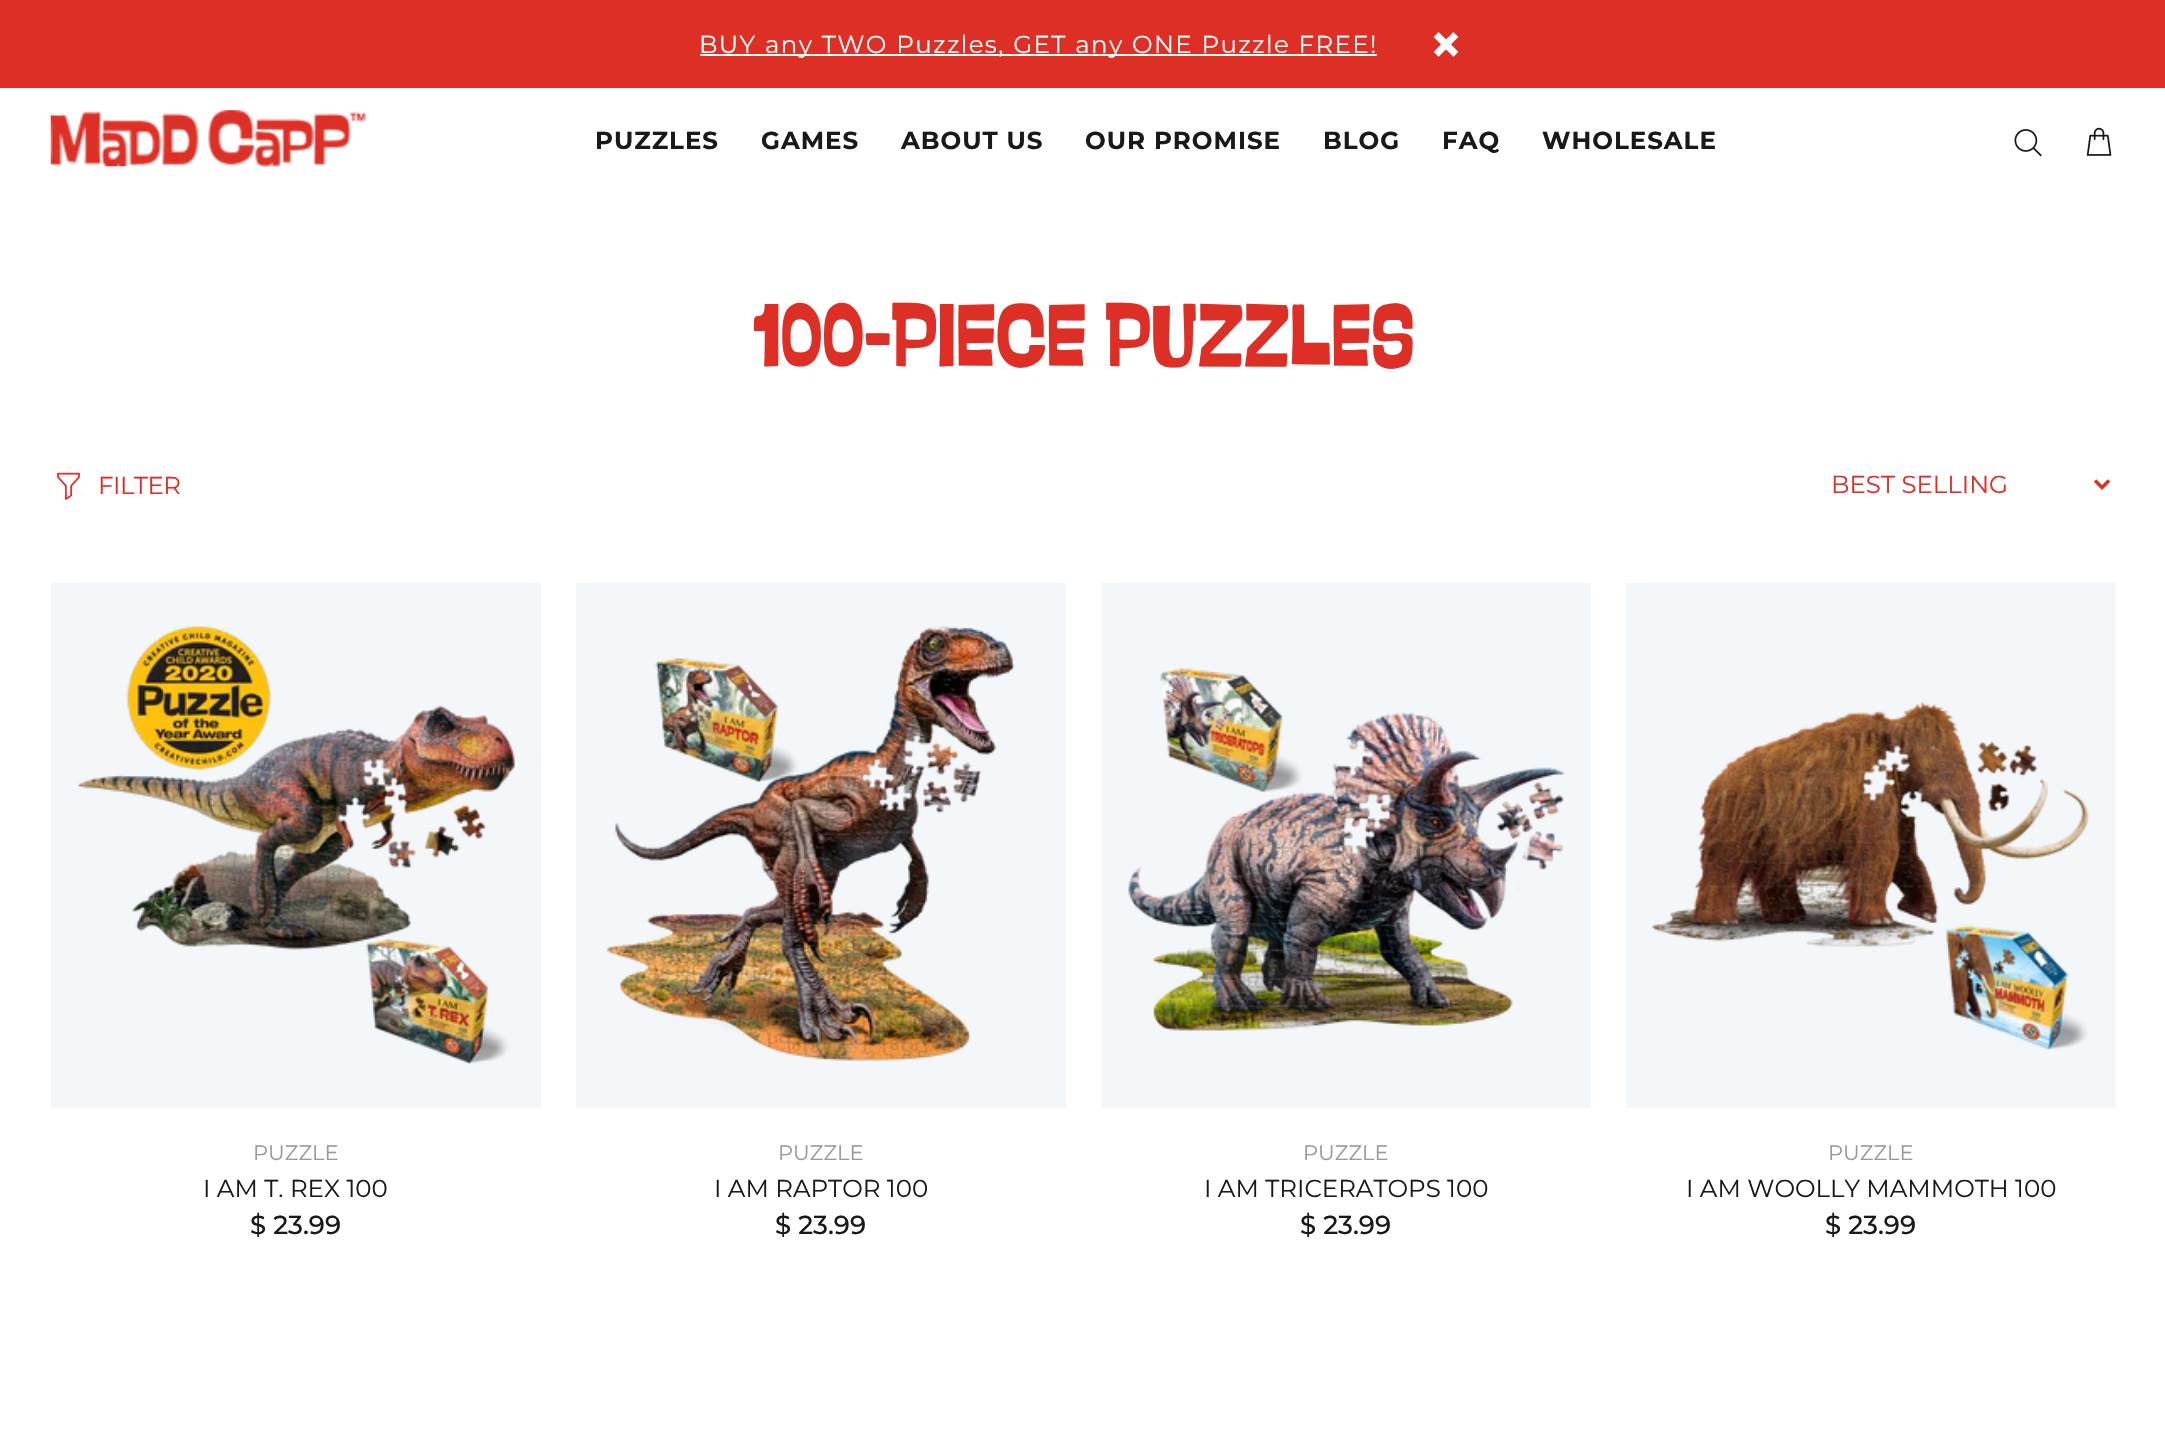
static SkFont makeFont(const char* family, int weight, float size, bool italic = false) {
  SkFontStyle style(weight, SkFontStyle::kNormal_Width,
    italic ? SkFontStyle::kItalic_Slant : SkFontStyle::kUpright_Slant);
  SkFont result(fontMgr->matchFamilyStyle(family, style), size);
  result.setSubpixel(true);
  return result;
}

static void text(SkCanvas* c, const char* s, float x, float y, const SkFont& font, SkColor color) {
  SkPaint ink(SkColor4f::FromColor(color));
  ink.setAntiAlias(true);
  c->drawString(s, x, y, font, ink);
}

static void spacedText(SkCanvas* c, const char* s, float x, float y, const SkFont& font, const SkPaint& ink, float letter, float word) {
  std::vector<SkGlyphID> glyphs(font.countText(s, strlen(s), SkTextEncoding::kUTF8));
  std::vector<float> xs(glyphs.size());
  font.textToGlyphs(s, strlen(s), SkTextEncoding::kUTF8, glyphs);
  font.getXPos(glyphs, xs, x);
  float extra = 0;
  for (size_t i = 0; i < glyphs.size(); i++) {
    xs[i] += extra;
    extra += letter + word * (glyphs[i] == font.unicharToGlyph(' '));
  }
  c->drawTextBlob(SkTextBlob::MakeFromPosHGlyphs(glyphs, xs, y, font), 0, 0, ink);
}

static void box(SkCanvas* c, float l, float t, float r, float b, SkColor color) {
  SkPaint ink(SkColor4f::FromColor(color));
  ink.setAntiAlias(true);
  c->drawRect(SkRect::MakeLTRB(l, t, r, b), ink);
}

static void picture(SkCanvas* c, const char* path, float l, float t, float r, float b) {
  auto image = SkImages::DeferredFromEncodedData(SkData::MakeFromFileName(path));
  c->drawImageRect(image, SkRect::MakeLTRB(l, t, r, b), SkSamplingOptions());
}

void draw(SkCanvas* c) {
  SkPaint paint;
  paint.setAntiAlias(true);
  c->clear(0xffffffff);
  box(c, 0, 0, 2165, 88, 0xffdd2f26);
  box(c, 700, 54, 1377, 56, 0xffffffff);
  SkFont face1 = makeFont("Montserrat", 400, 24.5f);
  paint.setColor(0xffffffff);
  spacedText(c, "BUY any TWO Puzzles, GET any ONE Puzzle FREE!", 699, 53, face1, paint, 1.35f, 0.75f);
  picture(c, "img_01.png", 1433, 32, 1459, 57);
  picture(c, "img_02.png", 50, 110, 366, 167);
  SkFont face2 = makeFont("Montserrat", 700, 24.5f);
  paint.setColor(0xff191919);
  spacedText(c, "PUZZLES", 595, 149, face2, paint, 1, 0);
  spacedText(c, "GAMES", 761, 149, face2, paint, 1, 0);
  spacedText(c, "ABOUT US", 901, 149, face2, paint, 1, 0);
  spacedText(c, "OUR PROMISE", 1085, 149, face2, paint, 1, 0);
  spacedText(c, "BLOG", 1323, 149, face2, paint, 1, 0);
  spacedText(c, "FAQ", 1442, 149, face2, paint, 1, 0);
  spacedText(c, "WHOLESALE", 1542, 149, face2, paint, 1, 0);
  picture(c, "img_03.png", 2014, 129, 2042, 157);
  picture(c, "img_04.png", 2086, 127, 2112, 156);
  SkFont face3 = makeFont("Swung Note", 500, 91);
  text(c, "100-PIECE PUZZLES", 753, 366, face3, 0xffdd2f26);
  picture(c, "img_05.png", 57, 472, 80, 500);
  paint.setColor(0xffdd2f26);
  spacedText(c, "FILTER", 98, 494, face1, paint, -0.5f, 0);
  paint.setStyle(SkPaint::kStroke_Style);
  paint.setStrokeWidth(3.5f);
  c->drawPath(SkPathBuilder().moveTo(2095, 480.5f).lineTo(2102, 487.5f).lineTo(2109, 480.5f).detach(), paint);
  text(c, "BEST SELLING", 1831, 493, face1, 0xffdd2f26);
  box(c, 51, 583, 541, 1108, 0xfff4f7fa);
  picture(c, "img_06.png", 78, 626, 515, 1064);
  SkFont face4 = makeFont("Montserrat", 400, 21);
  text(c, "PUZZLE", 253, 1160, face4, 0xff999999);
  text(c, "I AM T. REX 100", 203, 1197, face1, 0xff191919);
  SkFont face5 = makeFont("Montserrat", 500, 26);
  text(c, "$ 23.99", 250, 1234, face5, 0xff191919);
  box(c, 576, 583, 1066, 1108, 0xfff4f7fa);
  picture(c, "img_07.png", 605, 626, 1015, 1061);
  text(c, "PUZZLE", 778, 1160, face4, 0xff999999);
  text(c, "I AM RAPTOR 100", 714, 1197, face1, 0xff191919);
  text(c, "$ 23.99", 775, 1234, face5, 0xff191919);
  box(c, 1101, 583, 1591, 1108, 0xfff4f7fa);
  picture(c, "img_08.png", 1128, 668, 1565, 1031);
  text(c, "PUZZLE", 1303, 1160, face4, 0xff999999);
  text(c, "I AM TRICERATOPS 100", 1204, 1197, face1, 0xff191919);
  text(c, "$ 23.99", 1300, 1234, face5, 0xff191919);
  box(c, 1626, 583, 2116, 1108, 0xfff4f7fa);
  picture(c, "img_09.png", 1652, 701, 2090, 1050);
  text(c, "PUZZLE", 1828, 1160, face4, 0xff999999);
  text(c, "I AM WOOLLY MAMMOTH 100", 1686, 1197, face1, 0xff191919);
  text(c, "$ 23.99", 1825, 1234, face5, 0xff191919);
}
